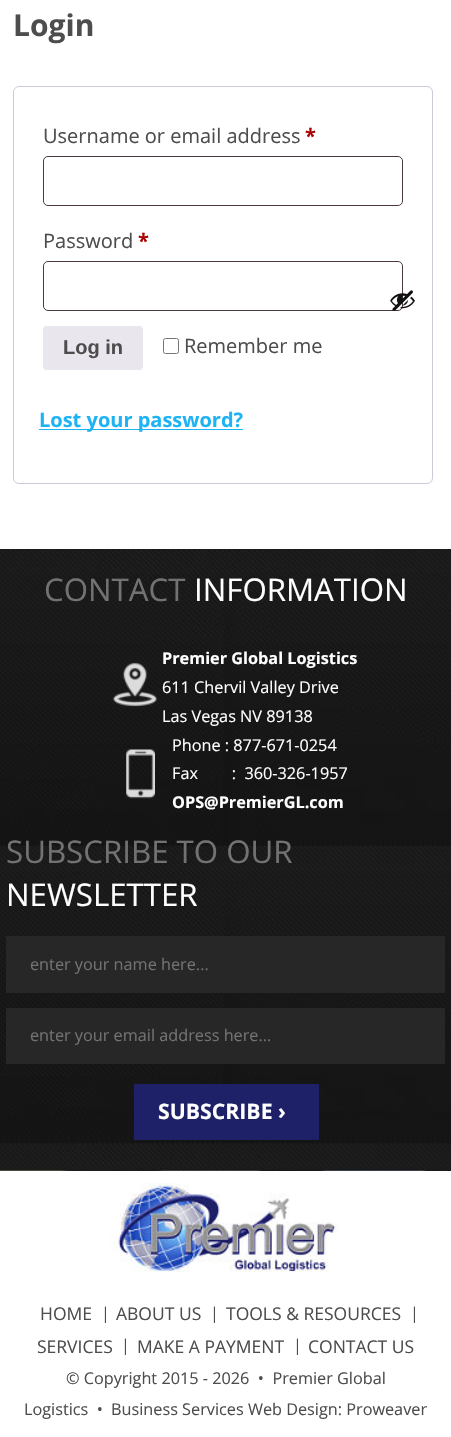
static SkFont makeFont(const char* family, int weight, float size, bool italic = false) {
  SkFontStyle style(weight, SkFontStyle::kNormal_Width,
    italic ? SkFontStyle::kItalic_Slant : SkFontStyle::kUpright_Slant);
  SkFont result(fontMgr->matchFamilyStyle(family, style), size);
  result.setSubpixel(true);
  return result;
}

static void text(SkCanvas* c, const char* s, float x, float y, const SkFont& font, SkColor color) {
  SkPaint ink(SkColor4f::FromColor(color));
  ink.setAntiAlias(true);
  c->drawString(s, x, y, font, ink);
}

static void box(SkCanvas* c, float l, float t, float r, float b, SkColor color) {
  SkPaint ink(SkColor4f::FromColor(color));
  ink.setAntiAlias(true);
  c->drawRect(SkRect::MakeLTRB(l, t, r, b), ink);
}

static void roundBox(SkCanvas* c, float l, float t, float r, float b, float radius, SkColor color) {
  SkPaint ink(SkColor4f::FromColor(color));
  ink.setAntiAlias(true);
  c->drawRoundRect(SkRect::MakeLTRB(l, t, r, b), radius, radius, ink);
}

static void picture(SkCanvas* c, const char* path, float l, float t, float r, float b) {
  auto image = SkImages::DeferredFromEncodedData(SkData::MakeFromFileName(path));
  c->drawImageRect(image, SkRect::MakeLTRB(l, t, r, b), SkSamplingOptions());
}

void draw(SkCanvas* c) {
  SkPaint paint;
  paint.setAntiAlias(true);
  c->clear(0xffffffff);
  SkFont face1 = makeFont("Open Sans", 700, 30);
  text(c, "Login", 13, 36, face1, 0xff4d4d4d);
  paint.setStyle(SkPaint::kStroke_Style);
  paint.setStrokeWidth(1);
  paint.setColor(0xffcfc8d8);
  c->drawRoundRect(SkRect::MakeLTRB(13.5f, 86.5f, 432.5f, 483.5f), 5.5f, 5.5f, paint);
  SkFont face2 = makeFont("Open Sans", 400, 20);
  text(c, "Username or email address", 43, 143, face2, 0xff4d4d4d);
  SkFont face3 = makeFont("Open Sans", 700, 20);
  text(c, "*", 305, 143, face3, 0xffaa0000);
  paint.setColor(0xff4d3939);
  c->drawRoundRect(SkRect::MakeLTRB(43.5f, 156.5f, 402.5f, 205.5f), 4.5f, 4.5f, paint);
  text(c, "Password", 43, 248, face2, 0xff4d4d4d);
  text(c, "*", 138, 248, face3, 0xffaa0000);
  c->drawRoundRect(SkRect::MakeLTRB(43.5f, 261.5f, 402.5f, 310.5f), 4.5f, 4.5f, paint);
  picture(c, "img_01.png", 390, 290, 415, 311);
  roundBox(c, 43, 326, 143, 370, 4, 0xffe9e6ed);
  SkFont face4 = makeFont("Liberation Sans", 700, 20);
  text(c, "Log in", 63, 354, face4, 0xff4d4d4d);
  paint.setColor(0xff767676);
  c->drawRoundRect(SkRect::MakeLTRB(163.5f, 338.5f, 178.5f, 353.5f), 2, 2, paint);
  text(c, "Remember me", 184, 353, face2, 0xff4d4d4d);
  box(c, 39, 429, 243, 430, 0xff1eb3f5);
  text(c, "Lost your password?", 39, 427, face3, 0xff1eb3f5);
  picture(c, "img_05.png", 0, 1170, 451, 1171);
  picture(c, "img_02.png", 0, 549, 451, 1171);
  SkFont face5 = makeFont("Open Sans", 400, 31.25f);
  text(c, "CONTACT", 44, 601, face5, 0xff727272);
  text(c, "INFORMATION", 194, 601, face5, 0xffffffff);
  SkFont face6 = makeFont("Open Sans", 700, 16.25f);
  text(c, "Premier Global Logistics", 162, 664, face6, 0xffffffff);
  picture(c, "img_03.png", 112, 662, 158, 707);
  SkFont face7 = makeFont("Open Sans", 400, 16.25f);
  text(c, "611 Chervil Valley Drive", 162, 693, face7, 0xffffffff);
  text(c, "Las Vegas NV 89138", 162, 722, face7, 0xffffffff);
  text(c, "Phone : 877-671-0254", 172, 751, face7, 0xffffffff);
  picture(c, "img_04.png", 126, 749, 155, 799);
  text(c, "Fax        :  360-326-1957", 172, 779, face7, 0xffffffff);
  text(c, "OPS@PremierGL.com", 172, 808, face6, 0xffffffff);
  text(c, "SUBSCRIBE TO OUR", 6, 863, face5, 0xff727272);
  text(c, "NEWSLETTER", 6, 906, face5, 0xffffffff);
  box(c, 6, 936, 445, 993, 0xff272727);
  text(c, "enter your name here...", 30, 970, face7, 0xff727272);
  box(c, 6, 1008, 445, 1064, 0xff272727);
  text(c, "enter your email address here...", 30, 1041, face7, 0xff727272);
  box(c, 134, 1084, 319, 1140, 0xff1e2068);
  SkFont face8 = makeFont("Open Sans", 700, 21.25f);
  text(c, "SUBSCRIBE ›", 158, 1119, face8, 0xffffffff);
  picture(c, "img_06.png", 110, 1183, 339, 1273);
  SkFont face9 = makeFont("Open Sans", 400, 17.5f);
  text(c, "HOME", 40, 1320, face9, 0xff4d4d4d);
  text(c, "|", 101, 1319, face7, 0xff4d4d4d);
  text(c, "ABOUT US", 116, 1320, face9, 0xff4d4d4d);
  text(c, "|", 210, 1319, face7, 0xff4d4d4d);
  text(c, "TOOLS & RESOURCES", 226, 1320, face9, 0xff4d4d4d);
  text(c, "|", 410, 1319, face7, 0xff4d4d4d);
  text(c, "SERVICES", 37, 1353, face9, 0xff4d4d4d);
  text(c, "|", 121, 1351, face7, 0xff4d4d4d);
  text(c, "MAKE A PAYMENT", 137, 1353, face9, 0xff4d4d4d);
  text(c, "|", 293, 1351, face7, 0xff4d4d4d);
  text(c, "CONTACT US", 308, 1353, face9, 0xff4d4d4d);
  text(c, "© Copyright 2015 - 2026  •  Premier Global", 66, 1384, face7, 0xff4d4d4d);
  text(c, "Logistics  •", 24, 1415, face7, 0xff4d4d4d);
  text(c, "Business Services Web Design: Proweaver", 111, 1415, face7, 0xff4d4d4d);
}
